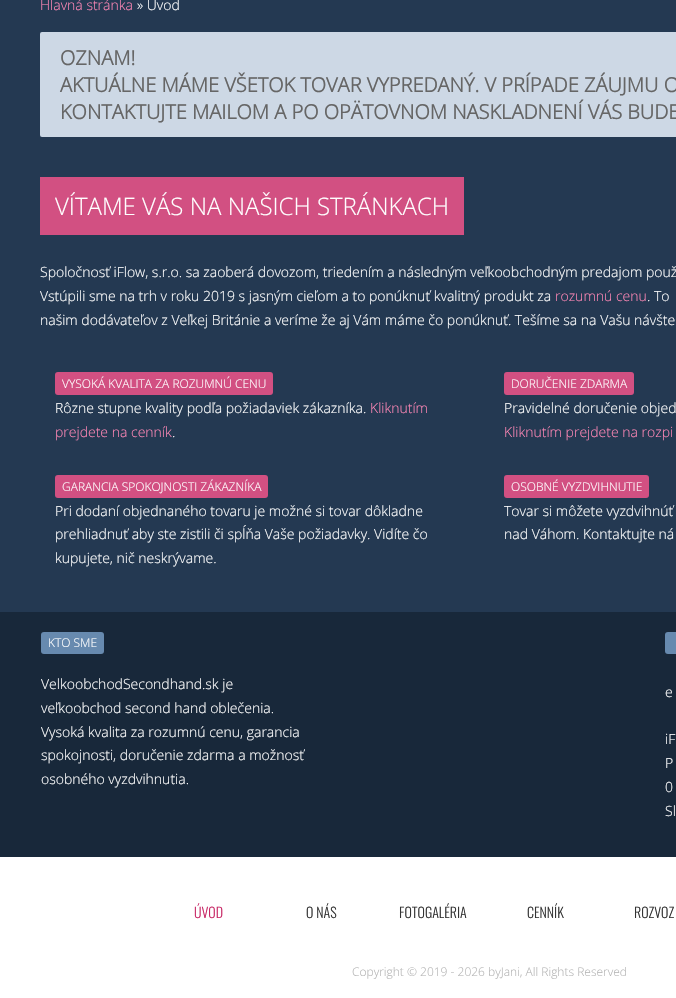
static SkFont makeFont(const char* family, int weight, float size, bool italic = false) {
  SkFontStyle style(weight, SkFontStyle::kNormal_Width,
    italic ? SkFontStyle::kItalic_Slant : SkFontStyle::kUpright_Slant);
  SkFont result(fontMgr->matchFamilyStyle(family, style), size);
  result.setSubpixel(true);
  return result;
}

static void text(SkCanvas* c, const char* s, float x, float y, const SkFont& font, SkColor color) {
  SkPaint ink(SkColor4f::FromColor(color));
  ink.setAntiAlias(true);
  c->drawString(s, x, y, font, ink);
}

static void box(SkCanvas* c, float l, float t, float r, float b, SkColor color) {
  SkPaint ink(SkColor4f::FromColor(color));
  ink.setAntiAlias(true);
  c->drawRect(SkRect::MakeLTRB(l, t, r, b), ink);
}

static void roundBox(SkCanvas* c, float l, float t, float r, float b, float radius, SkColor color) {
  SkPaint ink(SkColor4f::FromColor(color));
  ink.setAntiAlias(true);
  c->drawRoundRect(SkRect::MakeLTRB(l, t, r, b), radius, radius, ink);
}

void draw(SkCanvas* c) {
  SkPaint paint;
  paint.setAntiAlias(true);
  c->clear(0xffffffff);
  box(c, 0, 0, 676, 612, 0xff243952);
  SkFont face1 = makeFont("Open Sans", 300, 14);
  text(c, "Hlavná stránka", 40, 10, face1, 0xfffe87b6);
  text(c, "» Úvod", 137, 10, face1, 0xffffffff);
  roundBox(c, 40, 32, 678, 137, 2, 0xffcdd8e5);
  SkFont face2 = makeFont("Open Sans", 700, 20);
  text(c, "OZNAM!", 60, 65, face2, 0xff666666);
  text(c, "AKTUÁLNE MÁME VŠETOK TOVAR VYPREDANÝ. V PRÍPADE ZÁUJMU O", 60, 92, face2, 0xff666666);
  text(c, "KONTAKTUJTE MAILOM A PO OPÄTOVNOM NASKLADNENÍ VÁS BUDE", 60, 119, face2, 0xff666666);
  box(c, 40, 177, 464, 235, 0xffd25082);
  SkFont face3 = makeFont("Open Sans", 300, 24);
  text(c, "VÍTAME VÁS NA NAŠICH STRÁNKACH", 55, 215, face3, 0xffffffff);
  text(c, "Spoločnosť iFlow, s.r.o. sa zaoberá dovozom, triedením a následným veľkoobchodným predajom použ", 40, 277, face1, 0xffffffff);
  text(c, "Vstúpili sme na trh v roku 2019 s jasným cieľom a to ponúknuť kvalitný produkt za", 40, 301, face1, 0xffffffff);
  text(c, "rozumnú cenu", 555, 301, face1, 0xfffe87b6);
  text(c, ". To", 647, 301, face1, 0xffffffff);
  text(c, "našim dodávateľov z Veľkej Británie a veríme že aj Vám máme čo ponúknuť. Tešíme sa na Vašu návšte", 40, 325, face1, 0xffffffff);
  roundBox(c, 55, 372, 273, 395, 3, 0xffd25082);
  SkFont face4 = makeFont("Open Sans", 300, 12);
  text(c, "VYSOKÁ KVALITA ZA ROZUMNÚ CENU", 62, 388, face4, 0xffffffff);
  text(c, "Rôzne stupne kvality podľa požiadaviek zákazníka.", 55, 413, face1, 0xffffffff);
  text(c, "Kliknutím", 370, 413, face1, 0xfffe87b6);
  text(c, "prejdete na cenník", 55, 437, face1, 0xfffe87b6);
  text(c, ".", 172, 437, face1, 0xffffffff);
  roundBox(c, 504, 372, 634, 395, 3, 0xffd25082);
  text(c, "DORUČENIE ZDARMA", 511, 388, face4, 0xffffffff);
  text(c, "Pravidelné doručenie objed", 504, 413, face1, 0xffffffff);
  text(c, "Kliknutím prejdete na rozpi", 504, 437, face1, 0xfffe87b6);
  roundBox(c, 55, 475, 268, 498, 3, 0xffd25082);
  text(c, "GARANCIA SPOKOJNOSTI ZÁKAZNÍKA", 62, 491, face4, 0xffffffff);
  text(c, "Pri dodaní objednaného tovaru je možné si tovar dôkladne", 55, 516, face1, 0xffffffff);
  text(c, "prehliadnuť aby ste zistili či spĺňa Vaše požiadavky. Vidíte čo", 55, 539, face1, 0xffffffff);
  text(c, "kupujete, nič neskrývame.", 55, 563, face1, 0xffffffff);
  roundBox(c, 504, 475, 649, 498, 3, 0xffd25082);
  text(c, "OSOBNÉ VYZDVIHNUTIE", 511, 491, face4, 0xffffffff);
  text(c, "Tovar si môžete vyzdvihnúť", 504, 516, face1, 0xffffffff);
  text(c, "nad Váhom. Kontaktujte ná", 504, 539, face1, 0xffffffff);
  box(c, 0, 612, 676, 857, 0xff18283a);
  roundBox(c, 41, 632, 104, 654, 3, 0xff678aaf);
  text(c, "KTO SME", 48, 647, face4, 0xffffffff);
  text(c, "VelkoobchodSecondhand.sk je", 41, 689, face1, 0xffffffff);
  text(c, "veľkoobchod second hand oblečenia.", 41, 713, face1, 0xffffffff);
  text(c, "Vysoká kvalita za rozumnú cenu, garancia", 41, 737, face1, 0xffffffff);
  text(c, "spokojnosti, doručenie zdarma a možnosť", 41, 760, face1, 0xffffffff);
  text(c, "osobného vyzdvihnutia.", 41, 784, face1, 0xffffffff);
  roundBox(c, 665, 632, 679, 654, 3, 0xff678aaf);
  text(c, "e", 665, 697, face1, 0xffffffff);
  text(c, "iF", 665, 744, face1, 0xffffffff);
  text(c, "P", 665, 768, face1, 0xffffffff);
  text(c, "0", 665, 792, face1, 0xffffffff);
  text(c, "Sl", 665, 816, face1, 0xffffffff);
  SkFont face5 = makeFont("Oswald", 300, 14);
  text(c, "ÚVOD", 194, 918, face5, 0xffc82866);
  text(c, "O NÁS", 306, 918, face5, 0xff333333);
  text(c, "FOTOGALÉRIA", 399, 918, face5, 0xff333333);
  text(c, "CENNÍK", 527, 918, face5, 0xff333333);
  text(c, "ROZVOZ", 634, 918, face5, 0xff333333);
  text(c, "Copyright © 2019 - 2026 byJani, All Rights Reserved", 352, 976, face4, 0xffb4b4b4);
}
